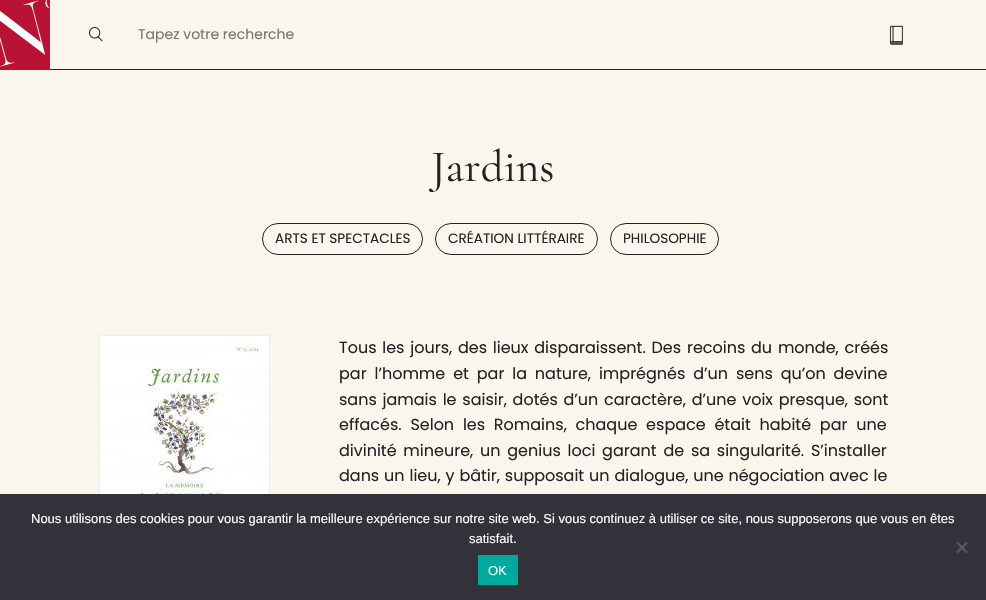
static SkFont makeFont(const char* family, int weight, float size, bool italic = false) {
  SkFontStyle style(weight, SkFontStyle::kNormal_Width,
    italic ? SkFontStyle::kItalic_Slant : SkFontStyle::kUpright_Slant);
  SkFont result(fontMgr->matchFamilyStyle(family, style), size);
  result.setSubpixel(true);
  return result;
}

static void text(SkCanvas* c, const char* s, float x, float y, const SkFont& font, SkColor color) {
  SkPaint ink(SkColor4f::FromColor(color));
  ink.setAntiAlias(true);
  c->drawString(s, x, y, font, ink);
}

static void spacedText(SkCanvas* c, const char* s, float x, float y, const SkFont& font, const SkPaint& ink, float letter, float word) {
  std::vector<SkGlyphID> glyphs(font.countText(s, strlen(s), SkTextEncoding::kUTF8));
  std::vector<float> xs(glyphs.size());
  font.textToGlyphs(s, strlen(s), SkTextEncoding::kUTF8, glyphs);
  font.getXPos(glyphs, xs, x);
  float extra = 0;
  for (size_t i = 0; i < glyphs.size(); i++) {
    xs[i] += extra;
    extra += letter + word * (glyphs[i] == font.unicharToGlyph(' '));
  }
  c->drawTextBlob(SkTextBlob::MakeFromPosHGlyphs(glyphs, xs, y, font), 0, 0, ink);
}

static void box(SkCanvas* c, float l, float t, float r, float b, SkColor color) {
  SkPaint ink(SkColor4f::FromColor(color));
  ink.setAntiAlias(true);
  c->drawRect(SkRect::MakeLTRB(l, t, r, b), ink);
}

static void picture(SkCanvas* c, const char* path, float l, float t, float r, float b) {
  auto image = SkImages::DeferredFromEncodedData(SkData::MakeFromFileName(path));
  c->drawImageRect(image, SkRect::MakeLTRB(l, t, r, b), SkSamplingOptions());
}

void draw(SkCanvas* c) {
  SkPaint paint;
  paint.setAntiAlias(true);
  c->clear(0xfffaf5ed);
  box(c, 50, 69, 986, 70, 0xff232323);
  picture(c, "img_01.png", 0, 0, 50, 70);
  picture(c, "img_02.png", 89, 27, 103, 42);
  SkFont face1 = makeFont("Poppins", 400, 14);
  text(c, "Tapez votre recherche", 138, 39, face1, 0xff757575);
  picture(c, "img_03.png", 889, 25, 903, 45);
  SkFont face2 = makeFont("Cormorant Garamond", 300, 45);
  text(c, "Jardins", 431, 181, face2, 0xff232323);
  paint.setStyle(SkPaint::kStroke_Style);
  paint.setStrokeWidth(1);
  paint.setColor(0xff232323);
  c->drawRoundRect(SkRect::MakeLTRB(262.5f, 223.5f, 422.5f, 254.5f), 15.5f, 15.5f, paint);
  SkFont face3 = makeFont("Poppins", 400, 13.6f);
  text(c, "ARTS ET SPECTACLES", 275, 243, face3, 0xff232323);
  c->drawRoundRect(SkRect::MakeLTRB(435.5f, 223.5f, 597.5f, 254.5f), 15.5f, 15.5f, paint);
  text(c, "CRÉATION LITTÉRAIRE", 448, 243, face3, 0xff232323);
  c->drawRoundRect(SkRect::MakeLTRB(610.5f, 223.5f, 718.5f, 254.5f), 15.5f, 15.5f, paint);
  text(c, "PHILOSOPHIE", 623, 243, face3, 0xff232323);
  paint.setColor(0xffeeeeee);
  c->drawRect(SkRect::MakeLTRB(99.5f, 335.5f, 269.5f, 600.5f), paint);
  picture(c, "img_04.png", 100, 336, 269, 494);
  SkFont face4 = makeFont("Poppins", 400, 16);
  paint.setStyle(SkPaint::kFill_Style);
  paint.setColor(0xff232323);
  spacedText(c, "Tous les jours, des lieux disparaissent. Des recoins du monde, créés", 339, 353, face4, paint, 0, 1.5f);
  spacedText(c, "par l’homme et par la nature, imprégnés d’un sens qu’on devine", 339, 379, face4, paint, 0, 3.6f);
  spacedText(c, "sans jamais le saisir, dotés d’un caractère, d’une voix presque, sont", 339, 405, face4, paint, 0, 1.5f);
  spacedText(c, "effacés. Selon les Romains, chaque espace était habité par une", 339, 430, face4, paint, 0, 4.5f);
  spacedText(c, "divinité mineure, un genius loci garant de sa singularité. S’installer", 339, 456, face4, paint, 0, 2.5f);
  spacedText(c, "dans un lieu, y bâtir, supposait un dialogue, une négociation avec le", 339, 481, face4, paint, 0, 0.6f);
  box(c, 0, 494, 986, 600, 0xff32323a);
  SkFont face5 = makeFont("Liberation Sans", 400, 13);
  text(c, "Nous utilisons des cookies pour vous garantir la meilleure expérience sur notre site web. Si vous continuez à utiliser ce site, nous supposerons que vous en êtes", 31, 523, face5, 0xffffffff);
  text(c, "satisfait.", 469, 543, face5, 0xffffffff);
  paint.setColor(0xff59595d);
  c->drawPath(SkPathBuilder().moveTo(966.5f, 541.5f).lineTo(968, 543).lineTo(957.5f, 553.5f).lineTo(956, 552).close().detach(), paint);
  c->drawPath(SkPathBuilder().moveTo(956, 543).lineTo(957.5f, 541.5f).lineTo(968, 552).lineTo(966.5f, 553.5f).close().detach(), paint);
  box(c, 478, 555, 518, 585, 0xff00a99d);
  text(c, "OK", 488, 575, face5, 0xffffffff);
}
